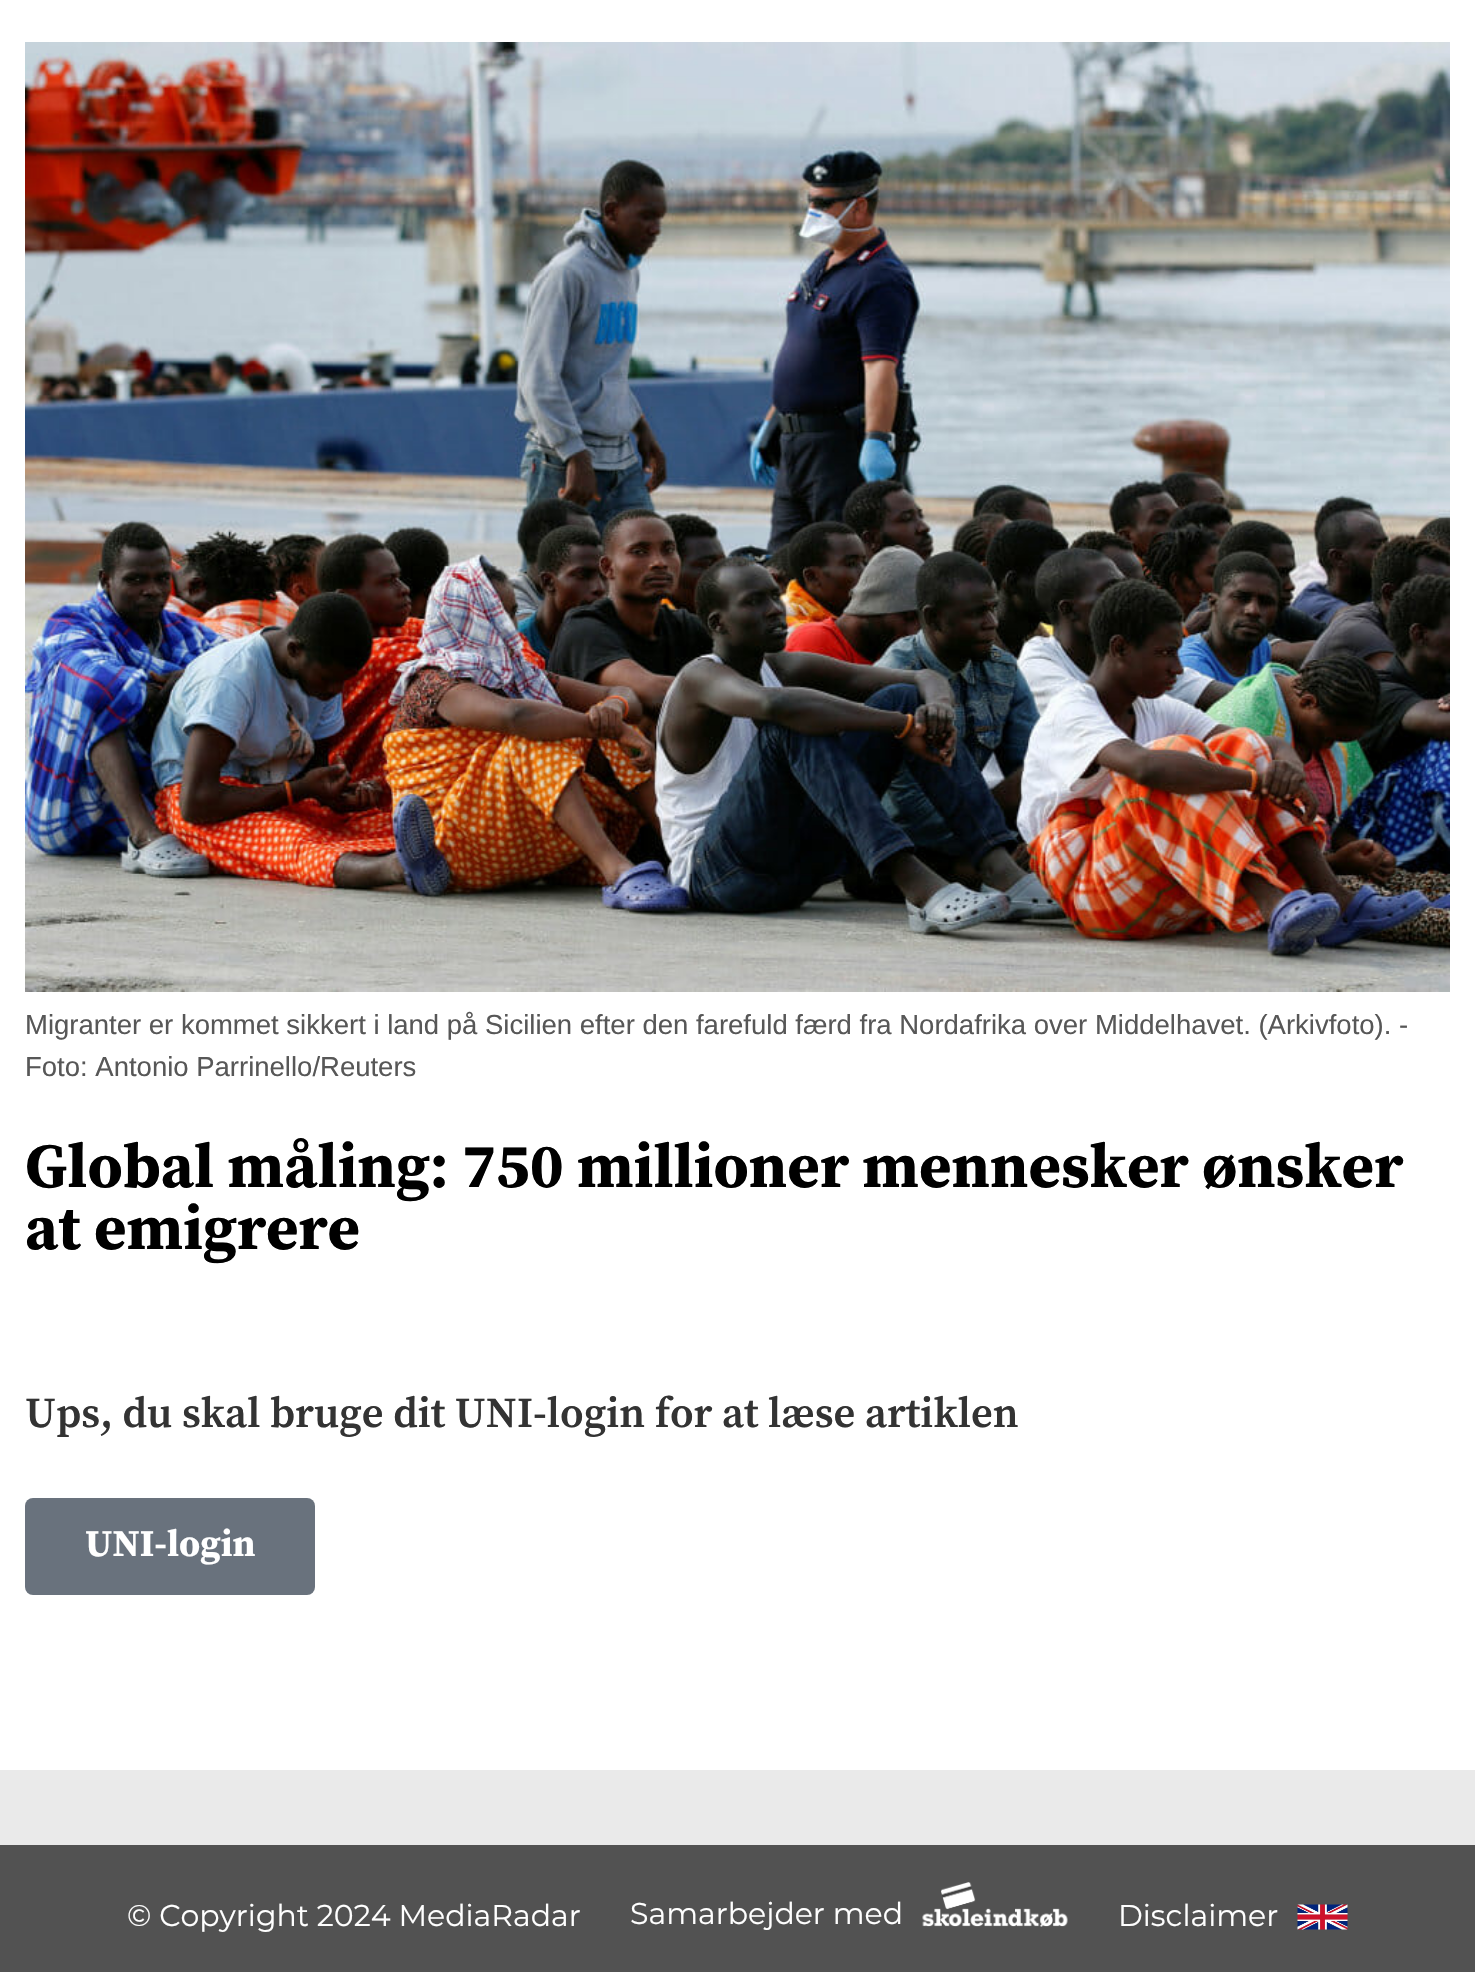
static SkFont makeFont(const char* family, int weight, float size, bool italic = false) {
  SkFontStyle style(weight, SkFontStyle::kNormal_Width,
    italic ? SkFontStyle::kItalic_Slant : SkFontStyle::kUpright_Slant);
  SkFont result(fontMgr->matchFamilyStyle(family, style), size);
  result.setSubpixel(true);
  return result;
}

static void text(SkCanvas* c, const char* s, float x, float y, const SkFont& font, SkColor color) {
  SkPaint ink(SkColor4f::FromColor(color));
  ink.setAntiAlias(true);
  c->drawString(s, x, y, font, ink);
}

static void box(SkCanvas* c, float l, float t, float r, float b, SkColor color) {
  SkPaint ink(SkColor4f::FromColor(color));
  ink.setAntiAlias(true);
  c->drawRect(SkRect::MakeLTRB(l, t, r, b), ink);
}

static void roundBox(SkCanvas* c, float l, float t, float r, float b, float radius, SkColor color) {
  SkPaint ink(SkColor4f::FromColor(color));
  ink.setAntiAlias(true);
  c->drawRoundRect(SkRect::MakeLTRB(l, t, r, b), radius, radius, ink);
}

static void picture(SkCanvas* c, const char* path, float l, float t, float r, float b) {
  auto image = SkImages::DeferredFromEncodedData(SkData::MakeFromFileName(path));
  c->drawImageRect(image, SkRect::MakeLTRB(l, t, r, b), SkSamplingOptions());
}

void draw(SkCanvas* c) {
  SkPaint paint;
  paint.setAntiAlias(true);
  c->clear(0xffeaeaea);
  box(c, 0, 0, 1475, 1770, 0xffffffff);
  picture(c, "img_01.png", 25, 42, 1450, 992);
  SkFont face1 = makeFont("Liberation Sans", 400, 27.5f);
  text(c, "Migranter er kommet sikkert i land på Sicilien efter den farefuld færd fra Nordafrika over Middelhavet. (Arkivfoto). -", 25, 1034, face1, 0xff575757);
  text(c, "Foto: Antonio Parrinello/Reuters", 25, 1076, face1, 0xff575757);
  SkFont face2 = makeFont("Source Serif Pro", 700, 62.5f);
  text(c, "Global måling: 750 millioner mennesker ønsker", 25, 1187, face2, 0xff000000);
  text(c, "at emigrere", 25, 1249, face2, 0xff000000);
  {
    const SkColor colors[] = {0x4dffffff, 0xe6ffffff};
    const float stops[] = {0, 1};
    const SkPoint ends[] = {{738, 1262}, {738, 1388}};
    paint.setShader(SkGradientShader::MakeLinear(ends, colors, stops, 2, SkTileMode::kClamp));
    paint.setAlpha(255);
  }
  c->drawRect(SkRect::MakeLTRB(215, 1263, 221, 1264), paint);
  SkFont face3 = makeFont("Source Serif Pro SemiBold", 600, 42.5f);
  text(c, "Ups, du skal bruge dit UNI-login for at læse artiklen", 25, 1427, face3, 0xff333333);
  roundBox(c, 25, 1498, 315, 1595, 8, 0xff69727d);
  SkFont face4 = makeFont("Source Serif Pro", 700, 37.5f);
  text(c, "UNI-login", 85, 1556, face4, 0xffffffff);
  box(c, 0, 1845, 1475, 1972, 0xff525252);
  SkFont face5 = makeFont("Montserrat", 400, 30);
  text(c, "© Copyright 2024 MediaRadar", 127, 1926, face5, 0xffffffff);
  text(c, "Samarbejder med", 630, 1924, face5, 0xffffffff);
  picture(c, "img_02.png", 922, 1882, 1068, 1927);
  text(c, "Disclaimer", 1118, 1926, face5, 0xffffffff);
  picture(c, "img_03.png", 1297, 1904, 1348, 1930);
}
